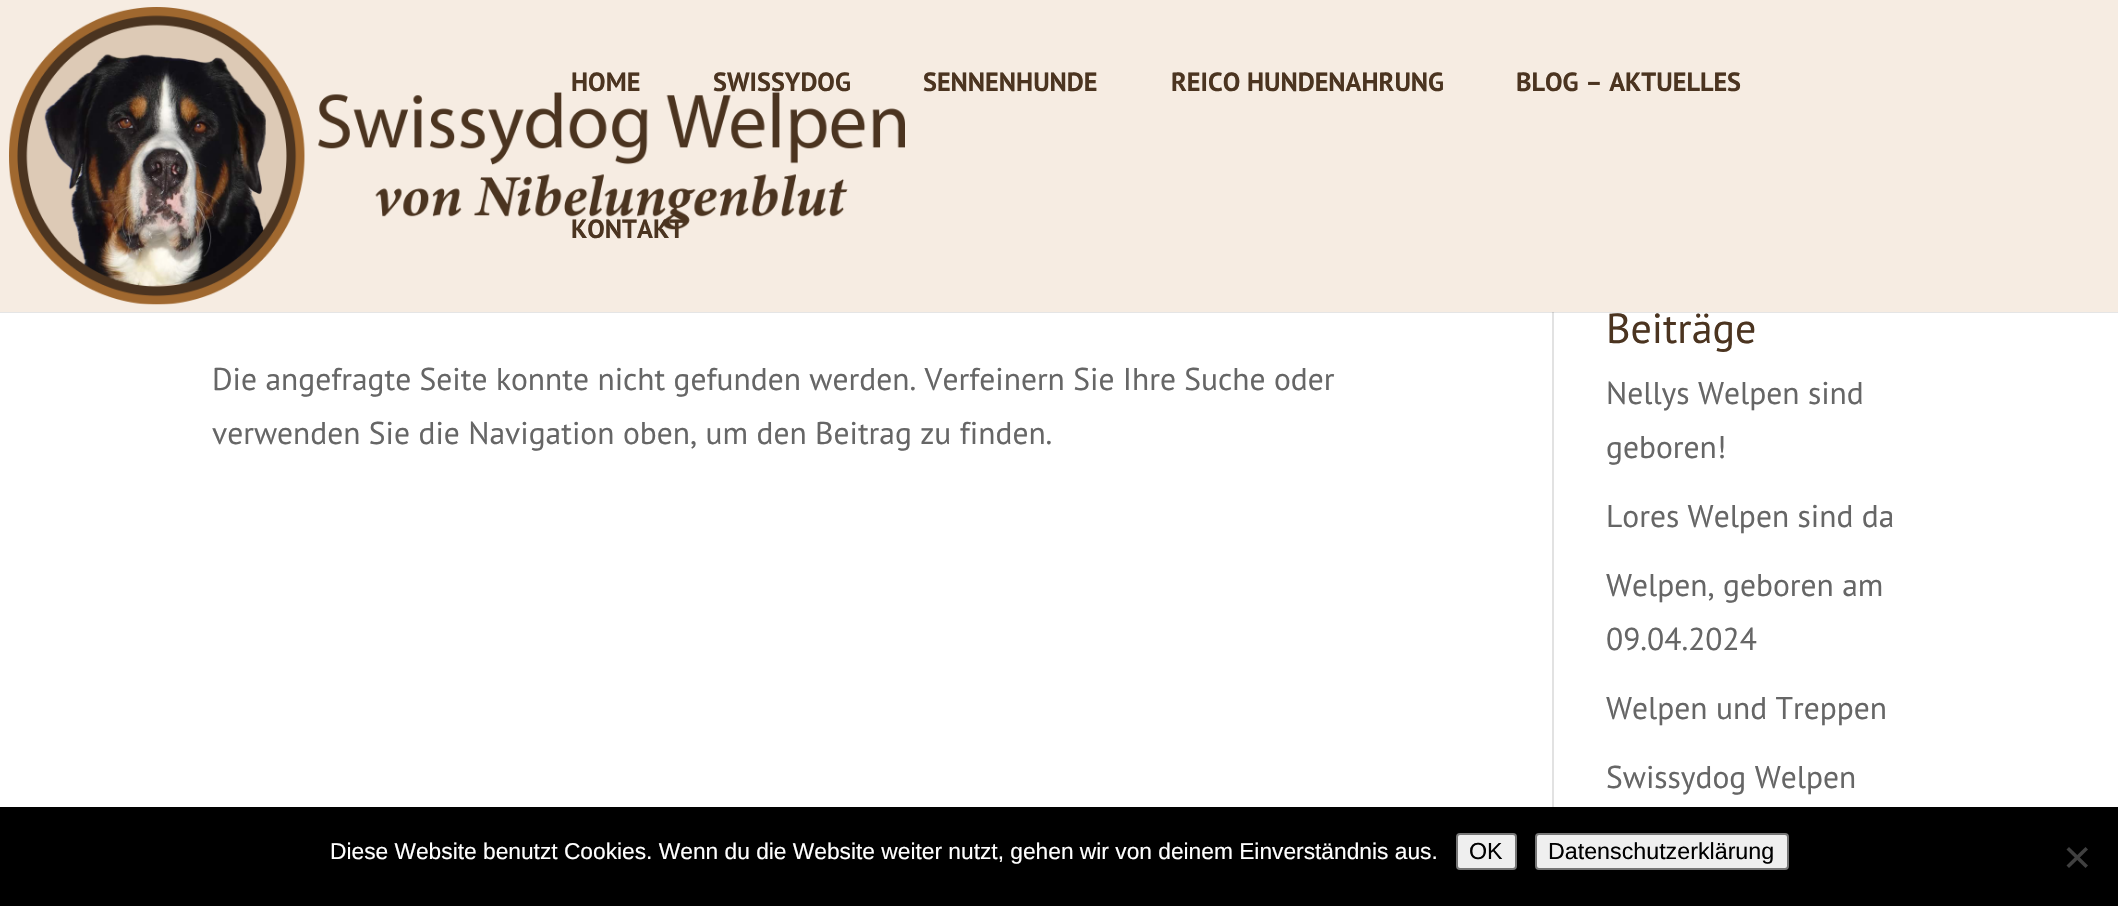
static SkFont makeFont(const char* family, int weight, float size, bool italic = false) {
  SkFontStyle style(weight, SkFontStyle::kNormal_Width,
    italic ? SkFontStyle::kItalic_Slant : SkFontStyle::kUpright_Slant);
  SkFont result(fontMgr->matchFamilyStyle(family, style), size);
  result.setSubpixel(true);
  return result;
}

static void text(SkCanvas* c, const char* s, float x, float y, const SkFont& font, SkColor color) {
  SkPaint ink(SkColor4f::FromColor(color));
  ink.setAntiAlias(true);
  c->drawString(s, x, y, font, ink);
}

static void box(SkCanvas* c, float l, float t, float r, float b, SkColor color) {
  SkPaint ink(SkColor4f::FromColor(color));
  ink.setAntiAlias(true);
  c->drawRect(SkRect::MakeLTRB(l, t, r, b), ink);
}

static void picture(SkCanvas* c, const char* path, float l, float t, float r, float b) {
  auto image = SkImages::DeferredFromEncodedData(SkData::MakeFromFileName(path));
  c->drawImageRect(image, SkRect::MakeLTRB(l, t, r, b), SkSamplingOptions());
}

void draw(SkCanvas* c) {
  SkPaint paint;
  paint.setAntiAlias(true);
  c->clear(0xffffffff);
  box(c, 1552, 312, 1554, 807, 0xffe2e2e2);
  box(c, 0, 312, 2118, 313, 0x1a000000);
  box(c, 0, 0, 2118, 312, 0xfff6ece2);
  picture(c, "img_01.png", 9, 7, 905, 305);
  SkFont face1 = makeFont("PT Sans", 700, 26.25f);
  text(c, "HOME", 571, 91, face1, 0xff4b3420);
  text(c, "SWISSYDOG", 713, 91, face1, 0xff4b3420);
  text(c, "SENNENHUNDE", 923, 91, face1, 0xff4b3420);
  text(c, "REICO HUNDENAHRUNG", 1171, 91, face1, 0xff4b3420);
  text(c, "BLOG – AKTUELLES", 1516, 91, face1, 0xff4b3420);
  text(c, "KONTAKT", 571, 238, face1, 0xff4b3420);
  SkFont face2 = makeFont("PT Sans", 400, 31.5f);
  text(c, "Die angefragte Seite konnte nicht gefunden werden. Verfeinern Sie Ihre Suche oder", 212, 390, face2, 0xff666666);
  text(c, "verwenden Sie die Navigation oben, um den Beitrag zu finden.", 212, 444, face2, 0xff666666);
  SkFont face3 = makeFont("PT Sans", 400, 42);
  text(c, "Beiträge", 1606, 343, face3, 0xff4b3420);
  text(c, "Nellys Welpen sind", 1606, 404, face2, 0xff666666);
  text(c, "geboren!", 1606, 458, face2, 0xff666666);
  text(c, "Lores Welpen sind da", 1606, 527, face2, 0xff666666);
  text(c, "Welpen, geboren am", 1606, 596, face2, 0xff666666);
  text(c, "09.04.2024", 1606, 650, face2, 0xff666666);
  text(c, "Welpen und Treppen", 1606, 719, face2, 0xff666666);
  text(c, "Swissydog Welpen", 1606, 788, face2, 0xff666666);
  box(c, 0, 807, 2118, 906, 0xff000000);
  SkFont face4 = makeFont("Liberation Sans", 400, 22.75f);
  text(c, "Diese Website benutzt Cookies. Wenn du die Website weiter nutzt, gehen wir von deinem Einverständnis aus.", 330, 859, face4, 0xffffffff);
  paint.setColor(0xffefefef);
  c->drawRoundRect(SkRect::MakeLTRB(1457, 834, 1516, 869), 3, 3, paint);
  paint.setStyle(SkPaint::kStroke_Style);
  paint.setStrokeWidth(2);
  paint.setColor(0xff767676);
  c->drawRoundRect(SkRect::MakeLTRB(1457, 834, 1516, 869), 3, 3, paint);
  SkFont face5 = makeFont("Liberation Sans", 400, 23.25f);
  text(c, "OK", 1469, 859, face5, 0xff000000);
  paint.setStyle(SkPaint::kFill_Style);
  paint.setColor(0xffefefef);
  c->drawRoundRect(SkRect::MakeLTRB(1536, 834, 1788, 869), 3, 3, paint);
  paint.setStyle(SkPaint::kStroke_Style);
  paint.setColor(0xff767676);
  c->drawRoundRect(SkRect::MakeLTRB(1536, 834, 1788, 869), 3, 3, paint);
  text(c, "Datenschutzerklärung", 1548, 859, face5, 0xff000000);
  paint.setStyle(SkPaint::kFill_Style);
  paint.setColor(0xff404040);
  c->drawPath(SkPathBuilder().moveTo(2085.5f, 847).lineTo(2088, 849.5f).lineTo(2069, 868).lineTo(2066.5f, 865.5f).close().detach(), paint);
  c->drawPath(SkPathBuilder().moveTo(2066.5f, 849.5f).lineTo(2069, 847).lineTo(2088, 865.5f).lineTo(2085.5f, 868).close().detach(), paint);
}
